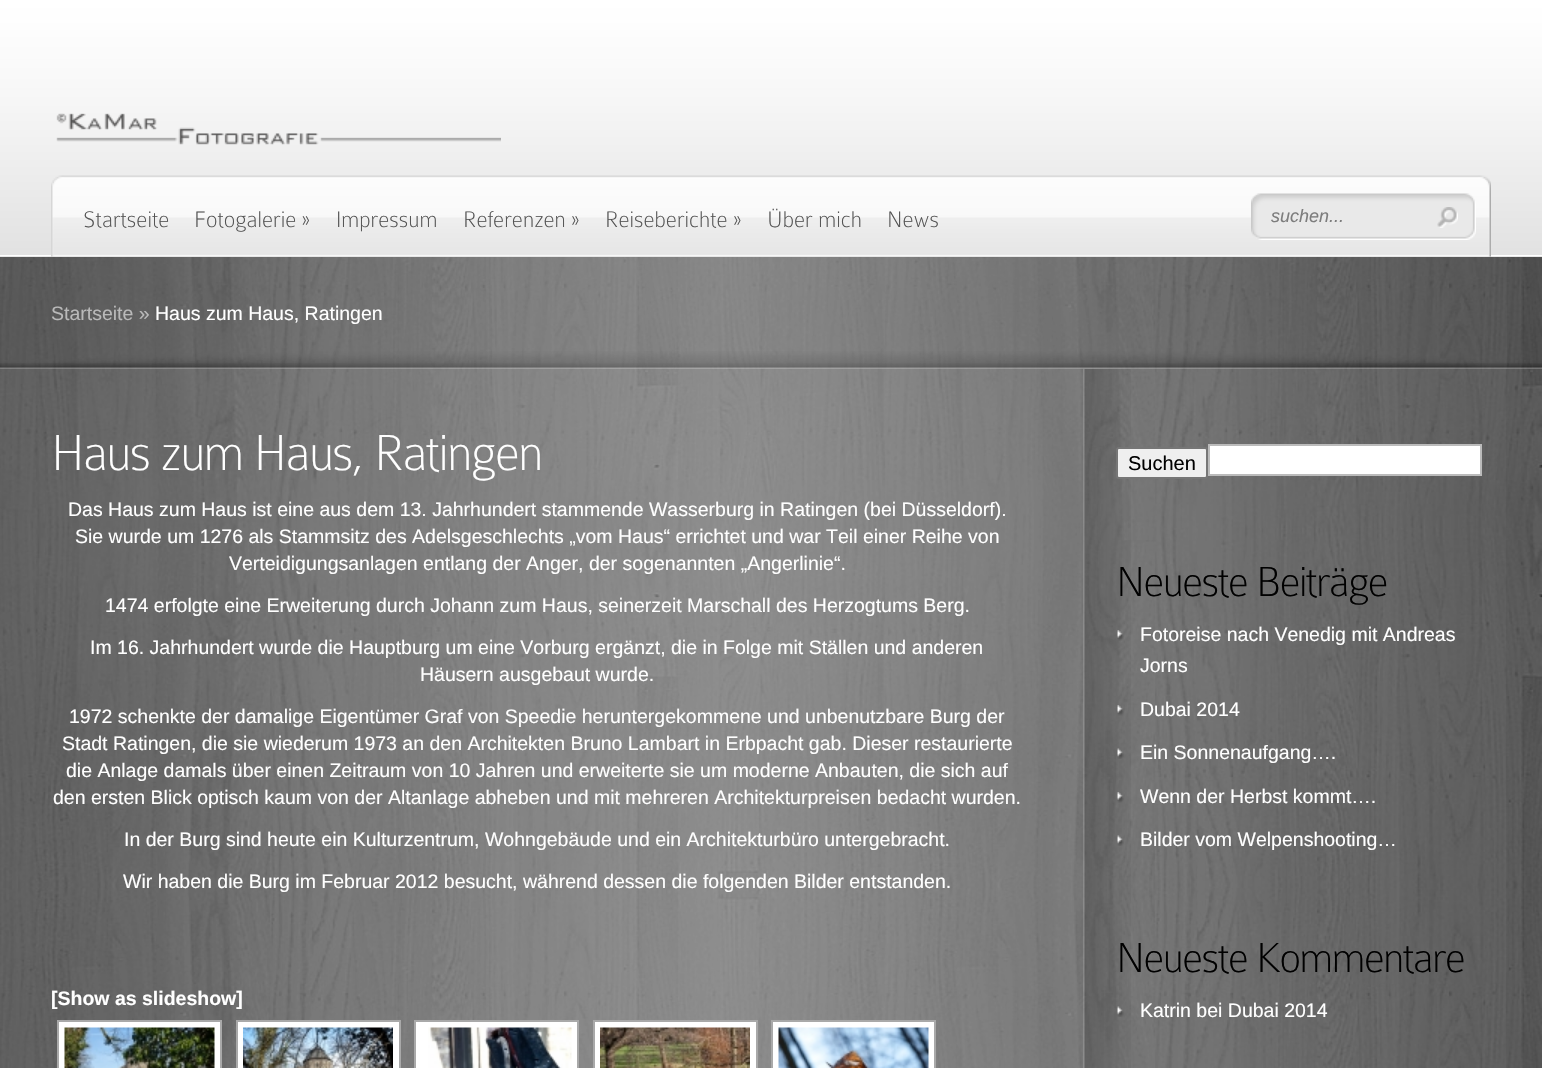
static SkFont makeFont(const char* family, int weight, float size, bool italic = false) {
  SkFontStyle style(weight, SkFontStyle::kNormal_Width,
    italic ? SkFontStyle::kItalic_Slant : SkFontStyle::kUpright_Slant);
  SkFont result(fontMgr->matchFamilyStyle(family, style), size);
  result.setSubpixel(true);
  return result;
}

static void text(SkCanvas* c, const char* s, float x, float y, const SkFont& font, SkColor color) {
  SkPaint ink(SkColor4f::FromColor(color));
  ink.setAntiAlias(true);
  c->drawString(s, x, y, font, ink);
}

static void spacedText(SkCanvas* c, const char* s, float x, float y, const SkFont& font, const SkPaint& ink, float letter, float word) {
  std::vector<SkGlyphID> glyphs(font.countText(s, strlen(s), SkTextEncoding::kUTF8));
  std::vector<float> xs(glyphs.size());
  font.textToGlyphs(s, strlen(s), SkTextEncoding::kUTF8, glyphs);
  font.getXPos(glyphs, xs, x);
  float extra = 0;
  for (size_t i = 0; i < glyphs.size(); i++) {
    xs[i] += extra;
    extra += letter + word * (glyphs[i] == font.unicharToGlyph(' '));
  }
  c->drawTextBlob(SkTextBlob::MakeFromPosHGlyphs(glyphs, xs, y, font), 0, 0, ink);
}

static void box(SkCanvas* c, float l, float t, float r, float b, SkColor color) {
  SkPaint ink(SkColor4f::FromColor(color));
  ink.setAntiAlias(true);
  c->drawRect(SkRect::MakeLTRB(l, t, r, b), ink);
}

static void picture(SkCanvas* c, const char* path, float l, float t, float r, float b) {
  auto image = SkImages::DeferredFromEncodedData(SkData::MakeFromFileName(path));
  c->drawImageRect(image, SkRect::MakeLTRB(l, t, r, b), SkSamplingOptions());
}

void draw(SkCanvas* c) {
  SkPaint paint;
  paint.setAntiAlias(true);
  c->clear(0xffffffff);
  picture(c, "img_01.png", 0, 257, 1542, 1068);
  picture(c, "img_02.png", 0, 0, 1542, 255);
  picture(c, "img_03.png", 56, 113, 501, 145);
  picture(c, "img_04.png", 51, 175, 1491, 257);
  SkFont face1 = makeFont("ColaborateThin", 100, 24);
  text(c, "Startseite", 83, 227, face1, 0xff535353);
  text(c, "Fotogalerie »", 194, 227, face1, 0xff535353);
  text(c, "Impressum", 336, 227, face1, 0xff535353);
  text(c, "Referenzen »", 463, 227, face1, 0xff535353);
  text(c, "Reiseberichte »", 605, 227, face1, 0xff535353);
  text(c, "Über mich", 767, 227, face1, 0xff535353);
  text(c, "News", 887, 227, face1, 0xff535353);
  picture(c, "img_05.png", 1251, 193, 1476, 240);
  SkFont face2 = makeFont("Liberation Sans", 400, 18, true);
  text(c, "suchen...", 1271, 222, face2, 0xff7d7d7d);
  picture(c, "img_06.png", 1437, 207, 1458, 228);
  picture(c, "img_07.png", 0, 363, 1542, 369);
  picture(c, "img_08.png", 0, 351, 1542, 369);
  box(c, 0, 256, 1542, 369, 0x17000000);
  picture(c, "img_09.png", 0, 257, 1507, 369);
  SkFont face3 = makeFont("Liberation Sans", 400, 19.5f);
  text(c, "Startseite »", 51, 320, face3, 0xffb9b9b9);
  text(c, "Haus zum Haus, Ratingen", 155, 320, face3, 0xffffffff);
  picture(c, "img_10.png", 0, 369, 1506, 1068);
  picture(c, "img_11.png", 1083, 369, 1131, 1068);
  SkFont face4 = makeFont("ColaborateThin", 100, 54);
  paint.setColor(0xffffffff);
  spacedText(c, "Haus zum Haus, Ratingen", 51, 470, face4, paint, -1.5f, 0);
  text(c, "Das Haus zum Haus ist eine aus dem 13. Jahrhundert stammende Wasserburg in Ratingen (bei Düsseldorf).", 68, 516, face3, 0xffffffff);
  text(c, "Sie wurde um 1276 als Stammsitz des Adelsgeschlechts „vom Haus“ errichtet und war Teil einer Reihe von", 75, 543, face3, 0xffffffff);
  text(c, "Verteidigungsanlagen entlang der Anger, der sogenannten „Angerlinie“.", 229, 570, face3, 0xffffffff);
  text(c, "1474 erfolgte eine Erweiterung durch Johann zum Haus, seinerzeit Marschall des Herzogtums Berg.", 105, 612, face3, 0xffffffff);
  text(c, "Im 16. Jahrhundert wurde die Hauptburg um eine Vorburg ergänzt, die in Folge mit Ställen und anderen", 90, 654, face3, 0xffffffff);
  text(c, "Häusern ausgebaut wurde.", 420, 681, face3, 0xffffffff);
  text(c, "1972 schenkte der damalige Eigentümer Graf von Speedie heruntergekommene und unbenutzbare Burg der", 69, 723, face3, 0xffffffff);
  text(c, "Stadt Ratingen, die sie wiederum 1973 an den Architekten Bruno Lambart in Erbpacht gab. Dieser restaurierte", 62, 750, face3, 0xffffffff);
  text(c, "die Anlage damals über einen Zeitraum von 10 Jahren und erweiterte sie um moderne Anbauten, die sich auf", 66, 777, face3, 0xffffffff);
  text(c, "den ersten Blick optisch kaum von der Altanlage abheben und mit mehreren Architekturpreisen bedacht wurden.", 53, 804, face3, 0xffffffff);
  text(c, "In der Burg sind heute ein Kulturzentrum, Wohngebäude und ein Architekturbüro untergebracht.", 124, 846, face3, 0xffffffff);
  text(c, "Wir haben die Burg im Februar 2012 besucht, während dessen die folgenden Bilder entstanden.", 123, 888, face3, 0xffffffff);
  SkFont face5 = makeFont("Liberation Sans", 700, 19.5f);
  text(c, "[Show as slideshow]", 51, 1005, face5, 0xffffffff);
  c->drawRect(SkRect::MakeLTRB(58, 1021, 221, 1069), paint);
  paint.setStyle(SkPaint::kStroke_Style);
  paint.setStrokeWidth(2);
  paint.setColor(0xffa9a9a9);
  c->drawRect(SkRect::MakeLTRB(58, 1021, 221, 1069), paint);
  picture(c, "img_12.png", 64, 1027, 215, 1068);
  paint.setStyle(SkPaint::kFill_Style);
  paint.setColor(0xffffffff);
  c->drawRect(SkRect::MakeLTRB(237, 1021, 400, 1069), paint);
  paint.setStyle(SkPaint::kStroke_Style);
  paint.setColor(0xffa9a9a9);
  c->drawRect(SkRect::MakeLTRB(237, 1021, 400, 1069), paint);
  picture(c, "img_13.png", 243, 1027, 393, 1068);
  paint.setStyle(SkPaint::kFill_Style);
  paint.setColor(0xffffffff);
  c->drawRect(SkRect::MakeLTRB(415, 1021, 578, 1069), paint);
  paint.setStyle(SkPaint::kStroke_Style);
  paint.setColor(0xffa9a9a9);
  c->drawRect(SkRect::MakeLTRB(415, 1021, 578, 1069), paint);
  picture(c, "img_14.png", 428, 1027, 572, 1068);
  paint.setStyle(SkPaint::kFill_Style);
  paint.setColor(0xffffffff);
  c->drawRect(SkRect::MakeLTRB(594, 1021, 757, 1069), paint);
  paint.setStyle(SkPaint::kStroke_Style);
  paint.setColor(0xffa9a9a9);
  c->drawRect(SkRect::MakeLTRB(594, 1021, 757, 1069), paint);
  picture(c, "img_15.png", 600, 1027, 750, 1068);
  paint.setStyle(SkPaint::kFill_Style);
  paint.setColor(0xffffffff);
  c->drawRect(SkRect::MakeLTRB(772, 1021, 935, 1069), paint);
  paint.setStyle(SkPaint::kStroke_Style);
  paint.setColor(0xffa9a9a9);
  c->drawRect(SkRect::MakeLTRB(772, 1021, 935, 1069), paint);
  picture(c, "img_16.png", 778, 1027, 929, 1068);
  paint.setStyle(SkPaint::kFill_Style);
  paint.setColor(0xffefefef);
  c->drawRoundRect(SkRect::MakeLTRB(1117, 448, 1207, 478), 2, 2, paint);
  paint.setStyle(SkPaint::kStroke_Style);
  paint.setColor(0xff767676);
  c->drawRoundRect(SkRect::MakeLTRB(1117, 448, 1207, 478), 2, 2, paint);
  SkFont face6 = makeFont("Liberation Sans", 400, 20);
  text(c, "Suchen", 1128, 470, face6, 0xff000000);
  paint.setStyle(SkPaint::kFill_Style);
  paint.setColor(0xffffffff);
  c->drawRect(SkRect::MakeLTRB(1209, 445, 1481, 475), paint);
  paint.setStyle(SkPaint::kStroke_Style);
  paint.setColor(0xffbbbbbb);
  c->drawRect(SkRect::MakeLTRB(1209, 445, 1481, 475), paint);
  SkFont face7 = makeFont("ColaborateThin", 100, 45);
  paint.setStyle(SkPaint::kFill_Style);
  paint.setColor(0xff000000);
  spacedText(c, "Neueste Beiträge", 1116, 596, face7, paint, -1.5f, 0);
  picture(c, "img_17.png", 1117, 630, 1124, 641);
  text(c, "Fotoreise nach Venedig mit Andreas", 1140, 641, face3, 0xffffffff);
  text(c, "Jorns", 1140, 672, face3, 0xffffffff);
  picture(c, "img_18.png", 1117, 705, 1124, 716);
  text(c, "Dubai 2014", 1140, 716, face3, 0xffffffff);
  picture(c, "img_19.png", 1117, 748, 1124, 759);
  text(c, "Ein Sonnenaufgang….", 1140, 759, face3, 0xffffffff);
  picture(c, "img_20.png", 1117, 792, 1124, 803);
  text(c, "Wenn der Herbst kommt….", 1140, 803, face3, 0xffffffff);
  picture(c, "img_21.png", 1117, 835, 1124, 846);
  text(c, "Bilder vom Welpenshooting…", 1140, 846, face3, 0xffffffff);
  spacedText(c, "Neueste Kommentare", 1116, 972, face7, paint, -1.5f, 0);
  picture(c, "img_22.png", 1117, 1006, 1124, 1017);
  text(c, "Katrin bei Dubai 2014", 1140, 1017, face3, 0xffffffff);
}
